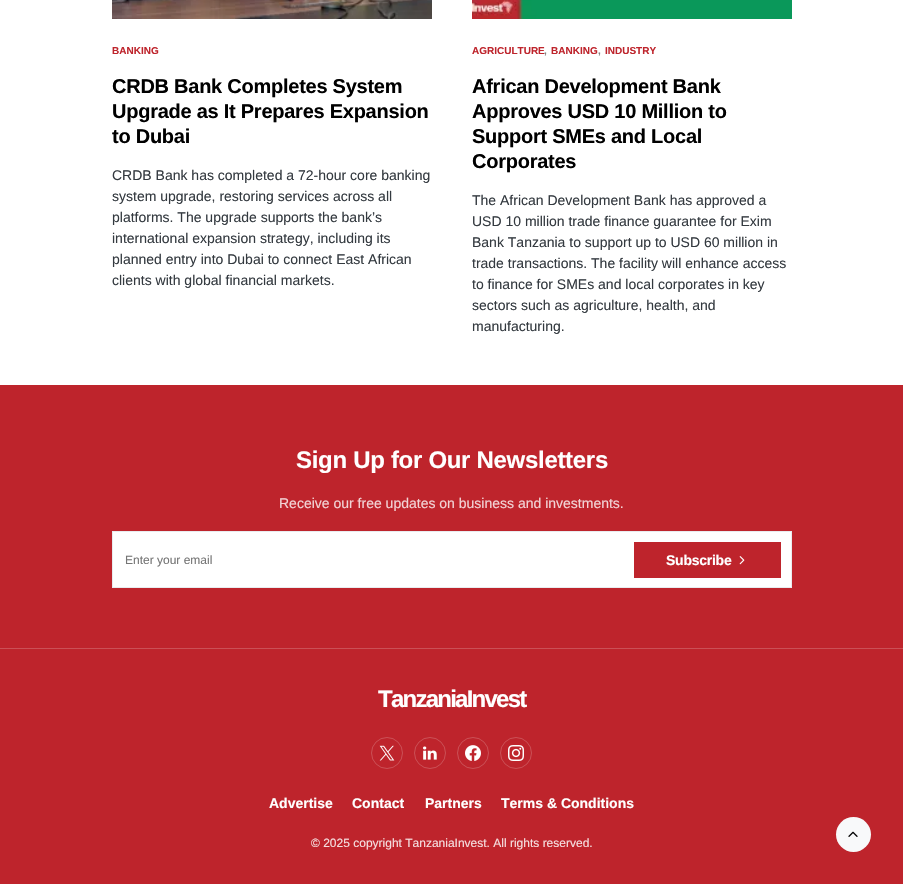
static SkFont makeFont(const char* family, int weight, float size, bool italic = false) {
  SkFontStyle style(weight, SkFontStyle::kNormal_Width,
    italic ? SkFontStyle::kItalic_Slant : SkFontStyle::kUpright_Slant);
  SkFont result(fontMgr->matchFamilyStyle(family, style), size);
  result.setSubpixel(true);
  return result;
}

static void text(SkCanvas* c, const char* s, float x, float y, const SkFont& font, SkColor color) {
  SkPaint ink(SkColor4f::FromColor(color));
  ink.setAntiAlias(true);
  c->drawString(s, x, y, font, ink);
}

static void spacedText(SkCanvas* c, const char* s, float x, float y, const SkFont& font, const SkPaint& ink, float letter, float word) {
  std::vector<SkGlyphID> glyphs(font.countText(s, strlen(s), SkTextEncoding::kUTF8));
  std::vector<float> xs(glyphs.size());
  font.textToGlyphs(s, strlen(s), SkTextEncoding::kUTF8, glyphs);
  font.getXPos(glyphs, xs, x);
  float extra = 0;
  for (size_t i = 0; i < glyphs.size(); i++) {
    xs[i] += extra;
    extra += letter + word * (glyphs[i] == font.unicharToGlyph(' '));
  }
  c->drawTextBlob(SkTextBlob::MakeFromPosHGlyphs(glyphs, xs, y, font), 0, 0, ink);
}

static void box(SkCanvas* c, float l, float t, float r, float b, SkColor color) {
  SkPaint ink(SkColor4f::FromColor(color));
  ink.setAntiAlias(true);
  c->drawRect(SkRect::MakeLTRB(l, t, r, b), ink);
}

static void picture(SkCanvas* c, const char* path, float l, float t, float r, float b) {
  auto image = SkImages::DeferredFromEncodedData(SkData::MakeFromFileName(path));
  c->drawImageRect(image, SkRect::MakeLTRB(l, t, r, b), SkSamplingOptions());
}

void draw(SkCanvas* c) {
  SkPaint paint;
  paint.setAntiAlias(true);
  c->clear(0xffffffff);
  picture(c, "img_01.png", 112, 0, 432, 19);
  SkFont face1 = makeFont("Liberation Sans", 700, 10);
  text(c, "BANKING", 112, 54, face1, 0xffbe242c);
  SkFont face2 = makeFont("Liberation Sans", 700, 20);
  paint.setColor(0xff000000);
  spacedText(c, "CRDB Bank Completes System", 112, 93, face2, paint, -0.25f, 0);
  spacedText(c, "Upgrade as It Prepares Expansion", 112, 118, face2, paint, -0.25f, 0);
  spacedText(c, "to Dubai", 112, 143, face2, paint, -0.25f, 0);
  SkFont face3 = makeFont("Liberation Sans", 400, 14);
  text(c, "CRDB Bank has completed a 72-hour core banking", 112, 180, face3, 0xff343a40);
  text(c, "system upgrade, restoring services across all", 112, 201, face3, 0xff343a40);
  text(c, "platforms. The upgrade supports the bank’s", 112, 222, face3, 0xff343a40);
  text(c, "international expansion strategy, including its", 112, 243, face3, 0xff343a40);
  text(c, "planned entry into Dubai to connect East African", 112, 264, face3, 0xff343a40);
  text(c, "clients with global financial markets.", 112, 285, face3, 0xff343a40);
  picture(c, "img_02.png", 472, 0, 792, 19);
  text(c, "AGRICULTURE", 472, 54, face1, 0xffbe242c);
  text(c, ",", 544, 54, face1, 0xff818181);
  text(c, "BANKING", 551, 54, face1, 0xffbe242c);
  text(c, ",", 598, 54, face1, 0xff818181);
  text(c, "INDUSTRY", 605, 54, face1, 0xffbe242c);
  spacedText(c, "African Development Bank", 472, 93, face2, paint, -0.25f, 0);
  spacedText(c, "Approves USD 10 Million to", 472, 118, face2, paint, -0.25f, 0);
  spacedText(c, "Support SMEs and Local", 472, 143, face2, paint, -0.25f, 0);
  spacedText(c, "Corporates", 472, 168, face2, paint, -0.25f, 0);
  text(c, "The African Development Bank has approved a", 472, 205, face3, 0xff343a40);
  text(c, "USD 10 million trade finance guarantee for Exim", 472, 226, face3, 0xff343a40);
  text(c, "Bank Tanzania to support up to USD 60 million in", 472, 247, face3, 0xff343a40);
  text(c, "trade transactions. The facility will enhance access", 472, 268, face3, 0xff343a40);
  text(c, "to finance for SMEs and local corporates in key", 472, 289, face3, 0xff343a40);
  text(c, "sectors such as agriculture, health, and", 472, 310, face3, 0xff343a40);
  text(c, "manufacturing.", 472, 331, face3, 0xff343a40);
  box(c, 0, 385, 903, 884, 0xffbe242c);
  box(c, 0, 648, 903, 649, 0xffcb5056);
  SkFont face4 = makeFont("Liberation Sans", 700, 24);
  paint.setColor(0xffffffff);
  spacedText(c, "Sign Up for Our Newsletters", 296, 468, face4, paint, -0.3f, 0);
  text(c, "Receive our free updates on business and investments.", 279, 508, face3, 0xfff2d3d5);
  c->drawRect(SkRect::MakeLTRB(112.5f, 531.5f, 791.5f, 587.5f), paint);
  paint.setStyle(SkPaint::kStroke_Style);
  paint.setStrokeWidth(1);
  paint.setColor(0xffe9ecef);
  c->drawRect(SkRect::MakeLTRB(112.5f, 531.5f, 791.5f, 587.5f), paint);
  SkFont face5 = makeFont("Liberation Sans", 400, 12);
  text(c, "Enter your email", 125, 564, face5, 0xff757575);
  box(c, 634, 542, 781, 578, 0xffbe242c);
  SkFont face6 = makeFont("Liberation Sans", 700, 14);
  paint.setStyle(SkPaint::kFill_Style);
  paint.setColor(0xffffffff);
  spacedText(c, "Subscribe", 666, 565, face6, paint, -0.25f, 0);
  picture(c, "img_03.png", 739, 556, 745, 565);
  spacedText(c, "TanzaniaInvest", 378, 707, face4, paint, -1.75f, 0);
  paint.setStyle(SkPaint::kStroke_Style);
  paint.setColor(0xffcb5056);
  c->drawCircle(387, 753, 15.5f, paint);
  picture(c, "img_04.png", 379, 745, 395, 761);
  c->drawCircle(430, 753, 15.5f, paint);
  picture(c, "img_05.png", 423, 746, 437, 760);
  c->drawCircle(473, 753, 15.5f, paint);
  picture(c, "img_06.png", 465, 745, 481, 761);
  c->drawCircle(516, 753, 15.5f, paint);
  picture(c, "img_07.png", 508, 745, 524, 761);
  text(c, "Advertise", 269, 808, face6, 0xffffffff);
  text(c, "Contact", 352, 808, face6, 0xffffffff);
  text(c, "Partners", 425, 808, face6, 0xffffffff);
  text(c, "Terms & Conditions", 501, 808, face6, 0xffffffff);
  text(c, "© 2025 copyright TanzaniaInvest. All rights reserved.", 311, 847, face5, 0xfff5dedf);
  paint.setStyle(SkPaint::kFill_Style);
  paint.setColor(0xfff8f9fa);
  c->drawCircle(853.5f, 834.5f, 17.5f, paint);
  picture(c, "img_08.png", 848, 831, 858, 837);
}
